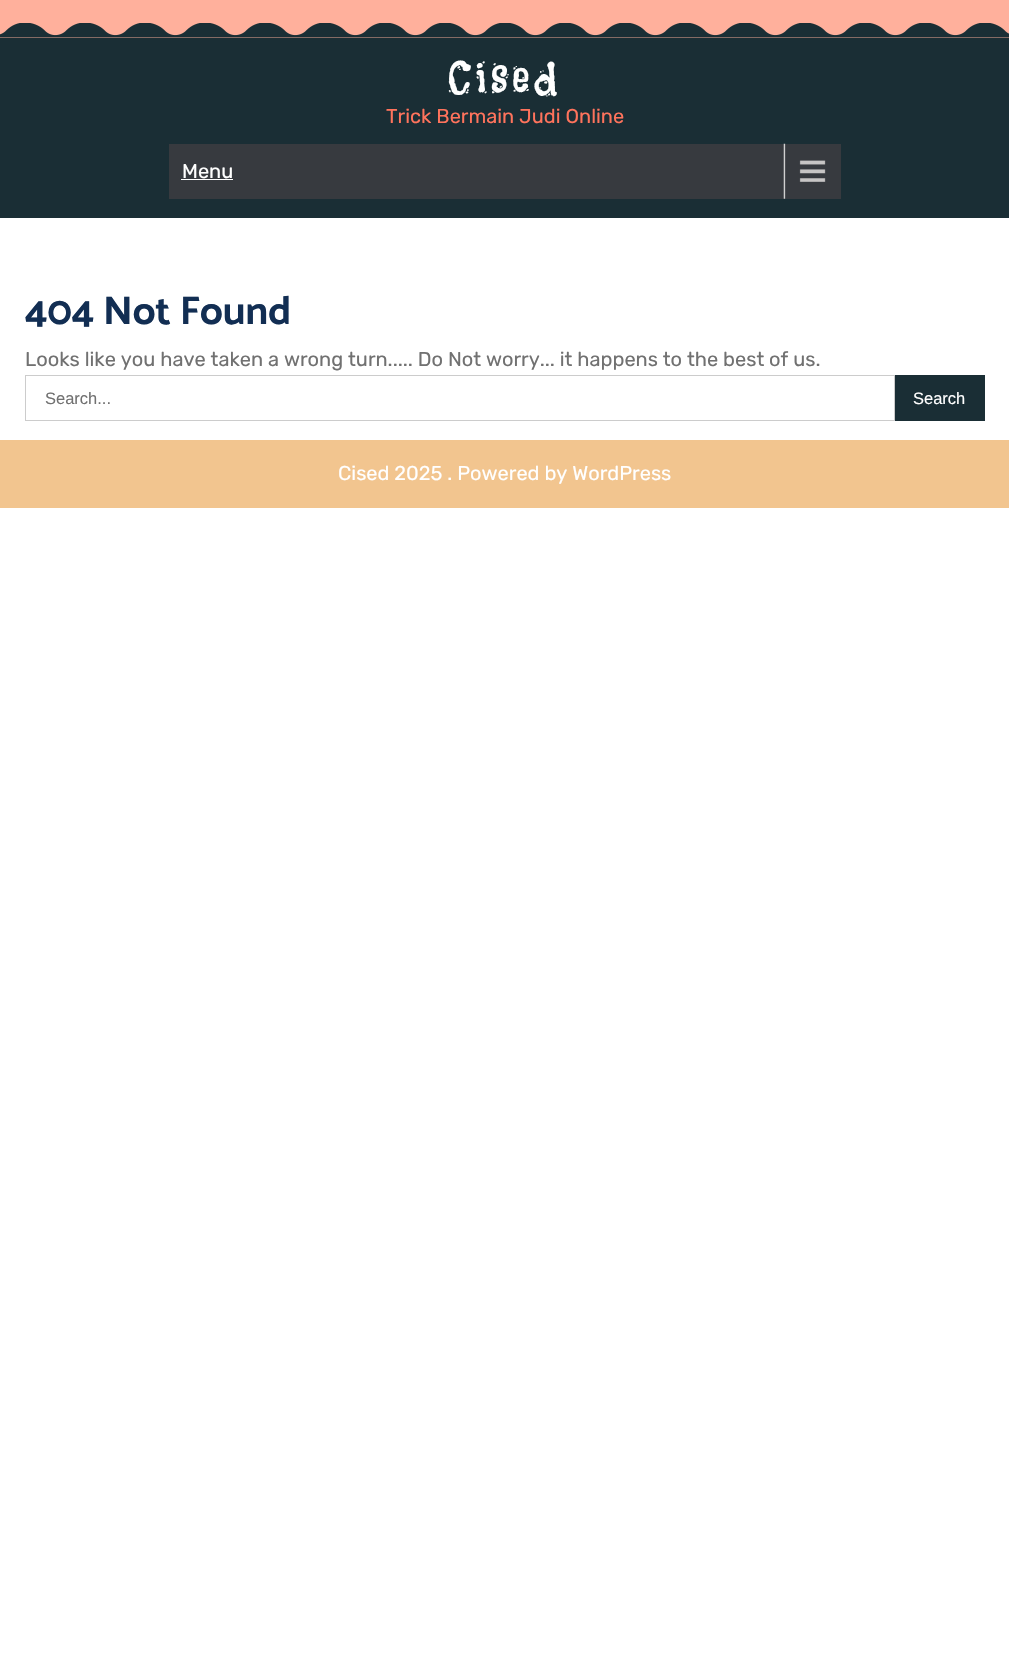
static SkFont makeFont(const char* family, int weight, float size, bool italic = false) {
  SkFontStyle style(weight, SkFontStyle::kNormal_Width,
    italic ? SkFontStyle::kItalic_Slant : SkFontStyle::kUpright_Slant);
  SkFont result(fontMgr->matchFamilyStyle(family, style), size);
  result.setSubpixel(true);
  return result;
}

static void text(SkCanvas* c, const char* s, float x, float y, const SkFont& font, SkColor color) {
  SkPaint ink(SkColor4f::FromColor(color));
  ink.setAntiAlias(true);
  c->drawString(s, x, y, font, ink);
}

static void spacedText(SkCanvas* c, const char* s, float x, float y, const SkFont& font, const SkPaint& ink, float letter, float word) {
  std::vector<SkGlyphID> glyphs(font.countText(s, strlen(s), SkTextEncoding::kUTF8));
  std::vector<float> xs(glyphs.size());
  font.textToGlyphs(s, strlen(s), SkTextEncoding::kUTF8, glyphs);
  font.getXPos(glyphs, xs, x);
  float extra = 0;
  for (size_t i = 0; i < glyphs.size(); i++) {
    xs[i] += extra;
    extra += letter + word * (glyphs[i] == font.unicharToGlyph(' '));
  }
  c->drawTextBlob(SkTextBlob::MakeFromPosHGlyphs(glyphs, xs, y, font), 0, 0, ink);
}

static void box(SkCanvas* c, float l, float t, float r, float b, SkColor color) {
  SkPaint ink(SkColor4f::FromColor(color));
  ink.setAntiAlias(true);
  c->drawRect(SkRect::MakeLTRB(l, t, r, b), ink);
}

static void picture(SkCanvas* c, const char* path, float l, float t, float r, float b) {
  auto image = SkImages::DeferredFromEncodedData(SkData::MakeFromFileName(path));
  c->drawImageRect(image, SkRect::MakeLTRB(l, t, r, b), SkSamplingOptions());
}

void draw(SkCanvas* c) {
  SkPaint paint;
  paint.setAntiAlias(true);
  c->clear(0xffffffff);
  box(c, 0, 0, 1009, 38, 0xffffb09c);
  box(c, 0, 38, 1009, 218, 0xff1a2e35);
  picture(c, "img_01.png", 0, 23, 1009, 38);
  SkFont face1 = makeFont("Flavors", 400, 45);
  paint.setColor(0xffffffff);
  spacedText(c, "Cised", 448, 95, face1, paint, 3.75f, 0);
  SkFont face2 = makeFont("Rubik", 400, 20);
  text(c, "Trick Bermain Judi Online", 386, 123, face2, 0xffff735c);
  box(c, 169, 144, 841, 199, 0xff373a3f);
  picture(c, "img_02.png", 783, 143, 826, 199);
  text(c, "Menu", 182, 178, face2, 0xffffffff);
  box(c, 181, 179, 233, 180, 0xffffffff);
  SkFont face3 = makeFont("Catamaran", 700, 40);
  text(c, "404 Not Found", 25, 324, face3, 0xff122e53);
  text(c, "Looks like you have taken a wrong turn..... Do Not worry... it happens to the best of us.", 25, 366, face2, 0xff717171);
  paint.setStyle(SkPaint::kStroke_Style);
  paint.setStrokeWidth(1);
  paint.setColor(0xffcccccc);
  c->drawRect(SkRect::MakeLTRB(25.5f, 375.5f, 894.5f, 420.5f), paint);
  SkFont face4 = makeFont("Liberation Sans", 400, 16.5f);
  text(c, "Search...", 45, 404, face4, 0xff717171);
  box(c, 895, 375, 985, 421, 0xff1a2e35);
  text(c, "Search", 913, 404, face4, 0xffffffff);
  box(c, 0, 440, 1009, 508, 0xfff2c58f);
  text(c, "Cised 2025 . Powered by WordPress", 338, 480, face2, 0xffffffff);
}
